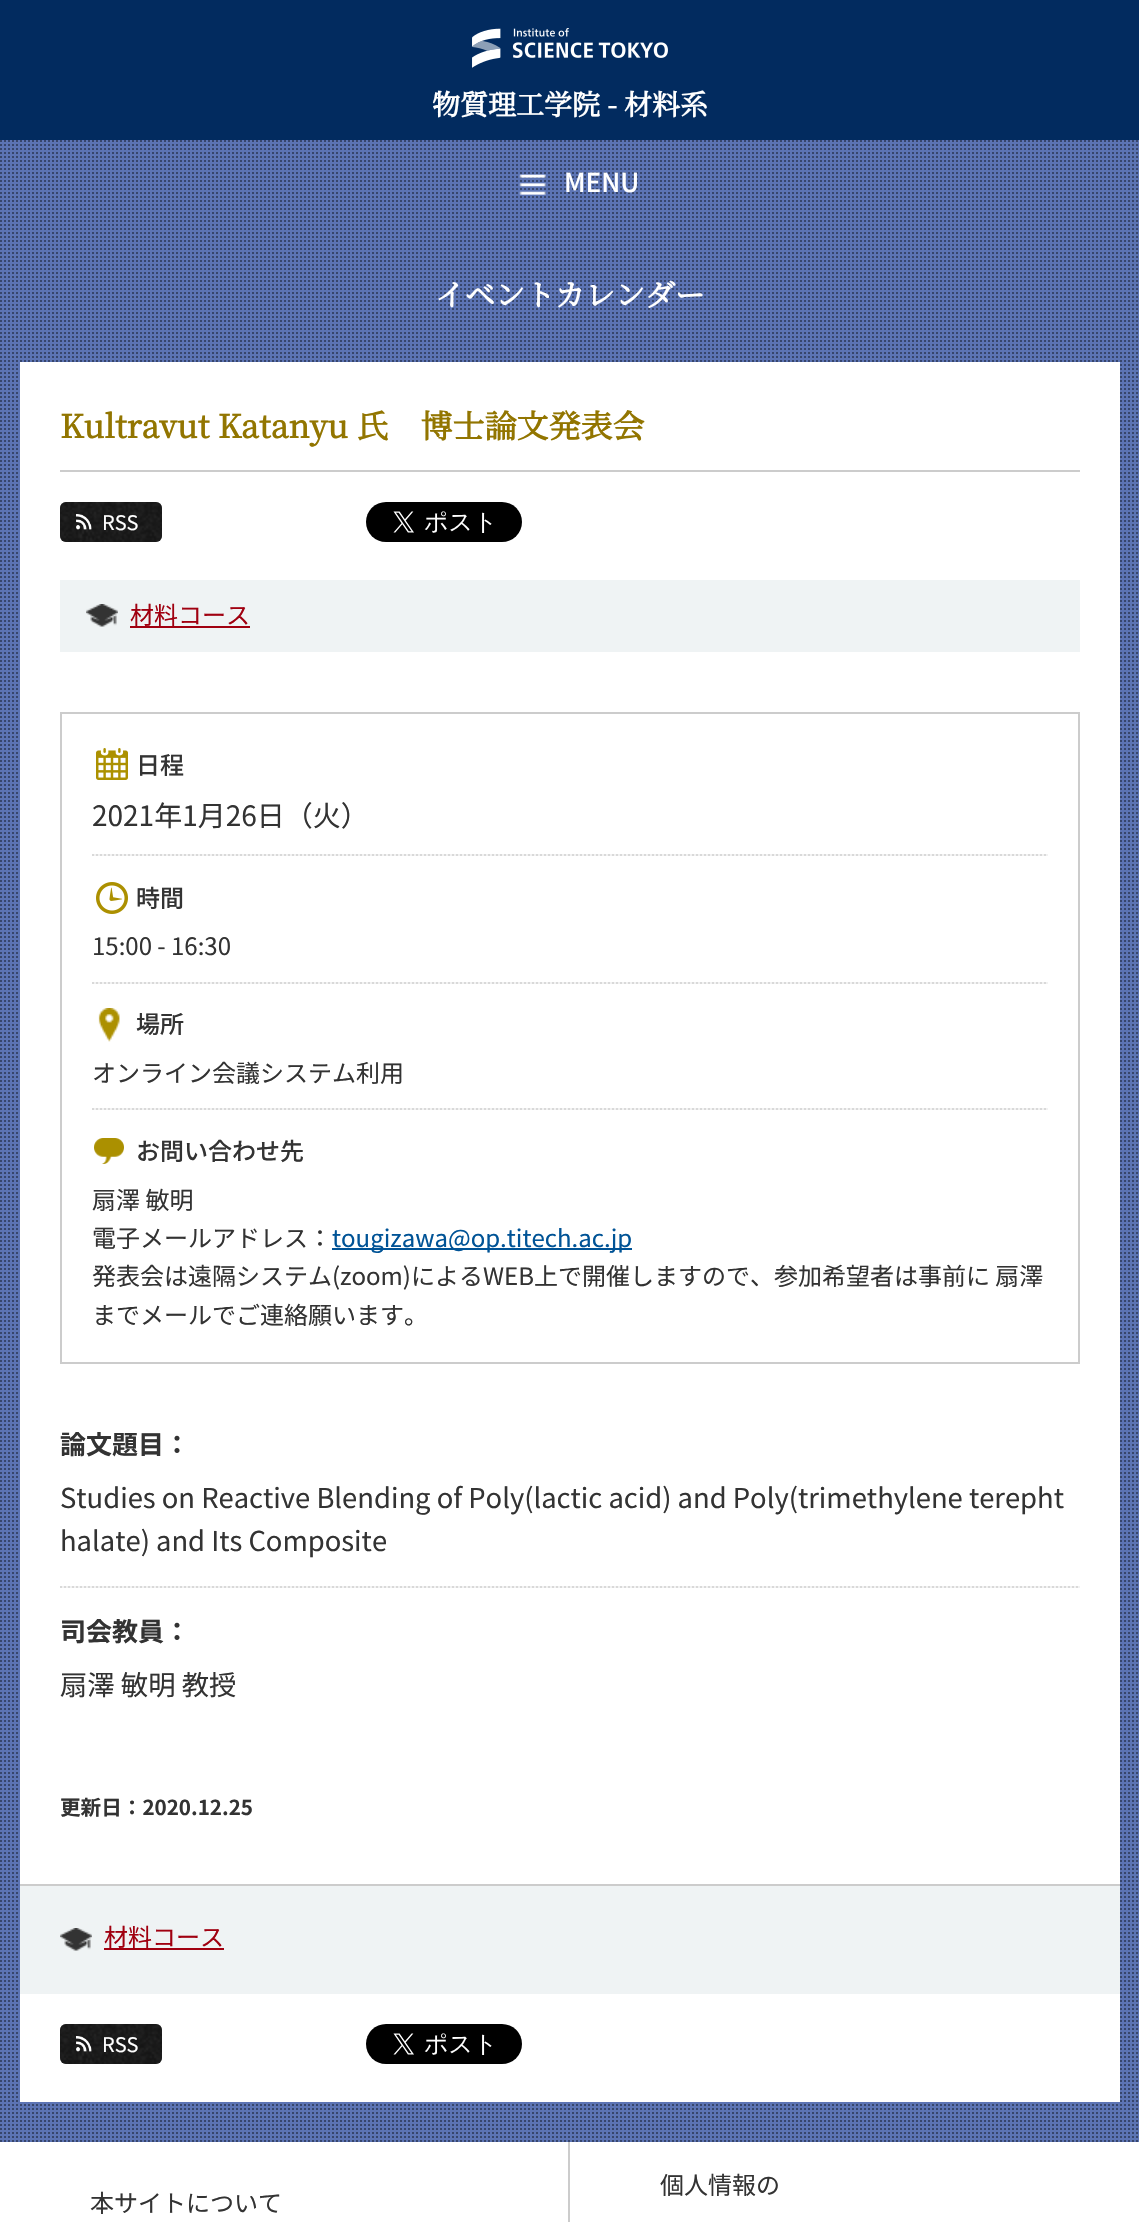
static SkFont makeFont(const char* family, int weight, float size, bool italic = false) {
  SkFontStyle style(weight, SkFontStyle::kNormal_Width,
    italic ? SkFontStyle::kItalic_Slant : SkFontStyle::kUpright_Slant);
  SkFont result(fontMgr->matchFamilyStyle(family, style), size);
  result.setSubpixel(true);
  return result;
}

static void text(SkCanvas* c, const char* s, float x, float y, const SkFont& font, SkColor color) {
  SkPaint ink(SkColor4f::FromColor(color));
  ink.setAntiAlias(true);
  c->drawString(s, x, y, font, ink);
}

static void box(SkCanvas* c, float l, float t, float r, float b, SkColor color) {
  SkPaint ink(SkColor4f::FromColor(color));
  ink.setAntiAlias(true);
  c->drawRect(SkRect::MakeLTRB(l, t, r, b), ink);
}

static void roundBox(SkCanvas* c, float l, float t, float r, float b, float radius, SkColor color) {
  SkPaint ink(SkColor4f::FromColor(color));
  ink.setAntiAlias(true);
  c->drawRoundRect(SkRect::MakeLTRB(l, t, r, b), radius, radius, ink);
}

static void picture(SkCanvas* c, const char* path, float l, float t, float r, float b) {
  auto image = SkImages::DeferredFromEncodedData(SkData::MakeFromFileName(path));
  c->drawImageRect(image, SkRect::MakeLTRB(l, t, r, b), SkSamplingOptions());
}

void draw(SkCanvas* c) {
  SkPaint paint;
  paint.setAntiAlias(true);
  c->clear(0xff5c74b4);
  box(c, 0, 0, 1139, 140, 0xff022b5f);
  picture(c, "img_01.png", 472, 28, 668, 68);
  SkFont face1 = makeFont("Noto Serif JP", 700, 28);
  text(c, "物質理工学院 - 材料系", 432, 115, face1, 0xffffffff);
  picture(c, "img_14.png", 0, 140, 1138, 2142);
  SkFont face2 = makeFont("Noto Serif JP", 700, 30);
  text(c, "イベントカレンダー", 435, 306, face2, 0xffffffff);
  box(c, 20, 362, 1120, 2102, 0xffffffff);
  box(c, 60, 470, 1080, 472, 0xffcccccc);
  SkFont face3 = makeFont("Noto Serif JP", 700, 32);
  text(c, "Kultravut Katanyu 氏　博士論文発表会", 60, 438, face3, 0xff927500);
  picture(c, "img_02.png", 60, 502, 162, 542);
  roundBox(c, 60, 502, 162, 542, 6, 0x80000000);
  picture(c, "img_03.png", 76, 514, 92, 530);
  SkFont face4 = makeFont("Noto Sans JP", 400, 20);
  text(c, "RSS", 102, 530, face4, 0xffffffff);
  picture(c, "img_04.png", 366, 502, 522, 542);
  box(c, 60, 580, 1080, 652, 0xffeff3f4);
  picture(c, "img_05.png", 86, 604, 118, 627);
  SkFont face5 = makeFont("Noto Sans JP", 400, 24);
  text(c, "材料コース", 130, 624, face5, 0xffa00010);
  box(c, 130, 626, 250, 628, 0xffa00010);
  paint.setStyle(SkPaint::kStroke_Style);
  paint.setStrokeWidth(2);
  paint.setColor(0xffcccccc);
  c->drawRect(SkRect::MakeLTRB(61, 713, 1079, 1363), paint);
  picture(c, "img_06.png", 92, 854, 1048, 856);
  picture(c, "img_07.png", 96, 748, 128, 780);
  SkFont face6 = makeFont("Noto Sans JP", 500, 24);
  text(c, "日程", 136, 774, face6, 0xff333333);
  SkFont face7 = makeFont("Noto Sans JP", 400, 28);
  text(c, "2021年1月26日（火）", 92, 826, face7, 0xff333333);
  picture(c, "img_06.png", 92, 982, 1048, 984);
  picture(c, "img_08.png", 96, 882, 128, 914);
  text(c, "時間", 136, 907, face6, 0xff333333);
  text(c, "15:00 - 16:30", 92, 955, face5, 0xff333333);
  picture(c, "img_06.png", 92, 1108, 1048, 1110);
  picture(c, "img_09.png", 98, 1008, 120, 1042);
  text(c, "場所", 136, 1033, face6, 0xff333333);
  text(c, "オンライン会議システム利用", 92, 1082, face5, 0xff333333);
  picture(c, "img_10.png", 94, 1138, 124, 1164);
  text(c, "お問い合わせ先", 136, 1160, face6, 0xff333333);
  text(c, "扇澤 敏明", 92, 1209, face5, 0xff333333);
  text(c, "電子メールアドレス：", 92, 1247, face5, 0xff333333);
  box(c, 332, 1248, 632, 1250, 0xff005396);
  text(c, "tougizawa@op.titech.ac.jp", 332, 1247, face5, 0xff005396);
  text(c, "発表会は遠隔システム(zoom)によるWEB上で開催しますので、参加希望者は事前に 扇澤", 92, 1285, face5, 0xff333333);
  text(c, "までメールでご連絡願います。", 92, 1324, face5, 0xff333333);
  SkFont face8 = makeFont("Noto Sans JP", 700, 26);
  text(c, "論文題目：", 60, 1454, face8, 0xff333333);
  picture(c, "img_11.png", 60, 1586, 1080, 1588);
  SkFont face9 = makeFont("Noto Sans JP", 400, 27.35f);
  text(c, "Studies on Reactive Blending of Poly(lactic acid) and Poly(trimethylene terepht", 60, 1508, face9, 0xff333333);
  text(c, "halate) and Its Composite", 60, 1551, face9, 0xff333333);
  text(c, "司会教員：", 60, 1641, face8, 0xff333333);
  text(c, "扇澤 敏明 教授", 60, 1695, face9, 0xff333333);
  SkFont face10 = makeFont("Noto Sans JP", 700, 20.6f);
  text(c, "更新日：2020.12.25", 60, 1815, face10, 0xff333333);
  box(c, 20, 1884, 1120, 1886, 0xffcccccc);
  box(c, 20, 1886, 1120, 1994, 0xffeff3f4);
  picture(c, "img_05.png", 60, 1928, 92, 1951);
  text(c, "材料コース", 104, 1946, face5, 0xffa00010);
  box(c, 104, 1948, 224, 1950, 0xffa00010);
  picture(c, "img_02.png", 60, 2024, 162, 2064);
  roundBox(c, 60, 2024, 162, 2064, 6, 0x80000000);
  picture(c, "img_12.png", 76, 2036, 92, 2052);
  text(c, "RSS", 102, 2052, face4, 0xffffffff);
  picture(c, "img_13.png", 366, 2024, 522, 2064);
  box(c, 0, 2142, 1139, 2222, 0xffffffff);
  text(c, "個人情報の", 660, 2194, face5, 0xff333333);
  box(c, 568, 2142, 570, 2222, 0xffcccccc);
  text(c, "本サイトについて", 90, 2212, face5, 0xff333333);
  picture(c, "img_15.png", 519, 174, 546, 195);
  SkFont face11 = makeFont("Noto Sans JP", 500, 26);
  text(c, "MENU", 564, 192, face11, 0xffffffff);
}
